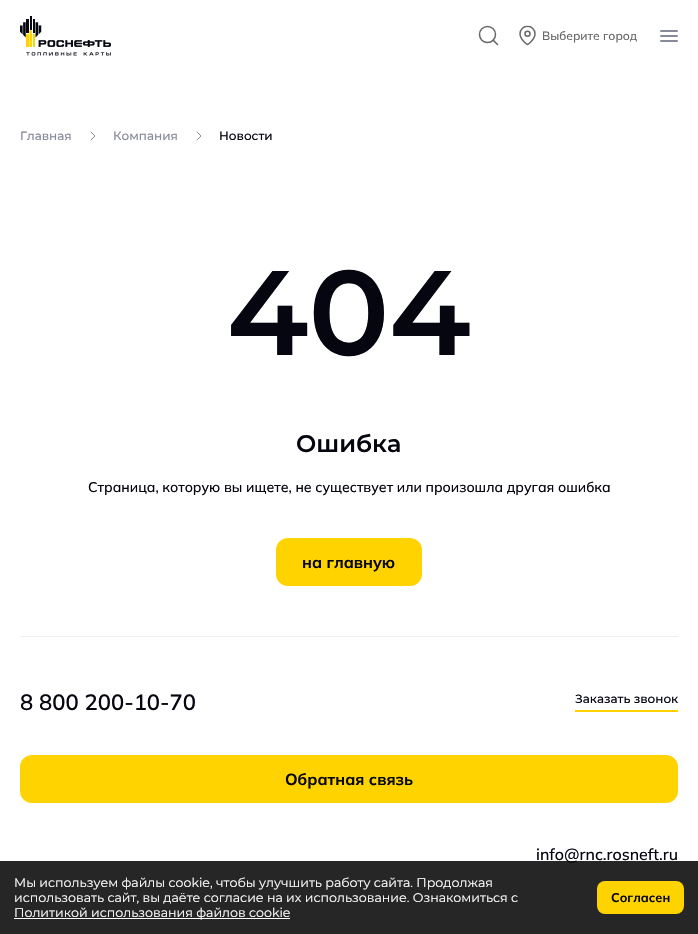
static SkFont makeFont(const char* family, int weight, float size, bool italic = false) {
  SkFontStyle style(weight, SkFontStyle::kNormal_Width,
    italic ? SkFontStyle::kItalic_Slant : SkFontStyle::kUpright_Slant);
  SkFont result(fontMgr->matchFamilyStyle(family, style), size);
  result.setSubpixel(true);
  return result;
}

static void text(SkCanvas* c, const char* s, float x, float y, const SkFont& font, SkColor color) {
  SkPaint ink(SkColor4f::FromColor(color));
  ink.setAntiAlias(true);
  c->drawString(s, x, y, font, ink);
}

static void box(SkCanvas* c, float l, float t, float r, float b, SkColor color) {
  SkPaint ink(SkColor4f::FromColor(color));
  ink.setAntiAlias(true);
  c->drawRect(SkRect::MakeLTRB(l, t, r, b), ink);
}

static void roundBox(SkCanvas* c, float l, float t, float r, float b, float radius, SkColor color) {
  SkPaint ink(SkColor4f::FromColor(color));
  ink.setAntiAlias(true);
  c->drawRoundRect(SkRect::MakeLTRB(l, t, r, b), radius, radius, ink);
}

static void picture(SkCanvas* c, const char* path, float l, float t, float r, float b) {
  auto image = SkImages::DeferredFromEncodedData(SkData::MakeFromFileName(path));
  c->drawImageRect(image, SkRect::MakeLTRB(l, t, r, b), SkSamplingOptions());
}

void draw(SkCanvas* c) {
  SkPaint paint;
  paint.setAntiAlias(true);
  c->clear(0xffffffff);
  picture(c, "img_01.png", 20, 16, 111, 56);
  picture(c, "img_02.png", 478, 25, 499, 46);
  picture(c, "img_03.png", 519, 25, 536, 46);
  SkFont face1 = makeFont("Mulish", 200, 12);
  text(c, "Выберите город", 542, 40, face1, 0xff686868);
  roundBox(c, 660, 30, 678, 32, 1, 0xff878a99);
  roundBox(c, 660, 35, 678, 37, 1, 0xff878a99);
  roundBox(c, 660, 40, 678, 42, 1, 0xff878a99);
  SkFont face2 = makeFont("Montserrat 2", 100, 12);
  text(c, "Главная", 20, 140, face2, 0xff878a99);
  paint.setStyle(SkPaint::kStroke_Style);
  paint.setStrokeWidth(1);
  paint.setStrokeCap(SkPaint::kRound_Cap);
  paint.setStrokeJoin(SkPaint::kRound_Join);
  paint.setColor(0xff878a99);
  c->drawPath(SkPathBuilder().moveTo(91, 140).lineTo(95, 136).lineTo(91, 132).detach(), paint);
  text(c, "Компания", 113, 140, face2, 0xff878a99);
  c->drawPath(SkPathBuilder().moveTo(197, 140).lineTo(201, 136).lineTo(197, 132).detach(), paint);
  text(c, "Новости", 219, 140, face2, 0xff05060f);
  SkFont face3 = makeFont("Montserrat", 100, 120);
  text(c, "404", 227, 355, face3, 0xff05060f);
  SkFont face4 = makeFont("Montserrat", 100, 24);
  text(c, "Ошибка", 296, 452, face4, 0xff05060f);
  SkFont face5 = makeFont("Mulish", 200, 14);
  text(c, "Cтраница, которую вы ищете, не существует или произошла другая ошибка", 88, 492, face5, 0xff05060f);
  roundBox(c, 276, 538, 422, 586, 12, 0xffffd300);
  SkFont face6 = makeFont("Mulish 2", 200, 16);
  text(c, "на главную", 302, 568, face6, 0xff05060f);
  box(c, 20, 636, 678, 637, 0xffeeeff2);
  SkFont face7 = makeFont("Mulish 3", 200, 22);
  text(c, "8 800 200-10-70", 20, 710, face7, 0xff05060f);
  text(c, "Заказать звонок", 575, 703, face2, 0xff05060f);
  box(c, 575, 710, 678, 712, 0xffffd200);
  roundBox(c, 20, 755, 678, 803, 12, 0xffffd300);
  text(c, "Обратная связь", 285, 785, face6, 0xff05060f);
  SkFont face8 = makeFont("Mulish", 200, 16);
  text(c, "info@rnc.rosneft.ru", 536, 860, face8, 0xff05060f);
  box(c, 0, 861, 698, 934, 0xd9000000);
  SkFont face9 = makeFont("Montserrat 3", 100, 12.6f);
  text(c, "Мы используем файлы cookie, чтобы улучшить работу сайта. Продолжая", 14, 887, face9, 0xffffffff);
  text(c, "использовать сайт, вы даёте согласие на их использование. Ознакомиться с", 14, 902, face9, 0xffffffff);
  box(c, 14, 918, 290, 919, 0xffffffff);
  text(c, "Политикой использования файлов cookie", 14, 917, face9, 0xffffffff);
  roundBox(c, 597, 881, 684, 914, 8, 0xffffd300);
  SkFont face10 = makeFont("Mulish 2", 200, 12.6f);
  text(c, "Согласен", 611, 902, face10, 0xff05060f);
}
